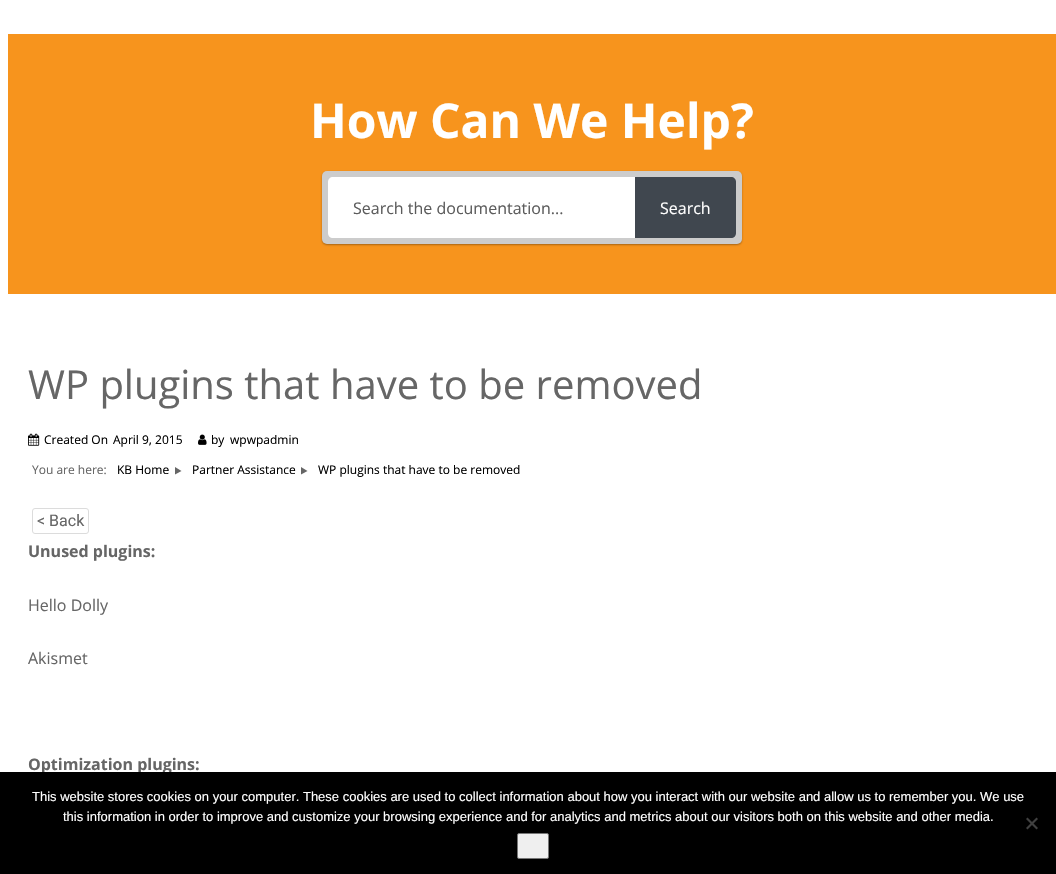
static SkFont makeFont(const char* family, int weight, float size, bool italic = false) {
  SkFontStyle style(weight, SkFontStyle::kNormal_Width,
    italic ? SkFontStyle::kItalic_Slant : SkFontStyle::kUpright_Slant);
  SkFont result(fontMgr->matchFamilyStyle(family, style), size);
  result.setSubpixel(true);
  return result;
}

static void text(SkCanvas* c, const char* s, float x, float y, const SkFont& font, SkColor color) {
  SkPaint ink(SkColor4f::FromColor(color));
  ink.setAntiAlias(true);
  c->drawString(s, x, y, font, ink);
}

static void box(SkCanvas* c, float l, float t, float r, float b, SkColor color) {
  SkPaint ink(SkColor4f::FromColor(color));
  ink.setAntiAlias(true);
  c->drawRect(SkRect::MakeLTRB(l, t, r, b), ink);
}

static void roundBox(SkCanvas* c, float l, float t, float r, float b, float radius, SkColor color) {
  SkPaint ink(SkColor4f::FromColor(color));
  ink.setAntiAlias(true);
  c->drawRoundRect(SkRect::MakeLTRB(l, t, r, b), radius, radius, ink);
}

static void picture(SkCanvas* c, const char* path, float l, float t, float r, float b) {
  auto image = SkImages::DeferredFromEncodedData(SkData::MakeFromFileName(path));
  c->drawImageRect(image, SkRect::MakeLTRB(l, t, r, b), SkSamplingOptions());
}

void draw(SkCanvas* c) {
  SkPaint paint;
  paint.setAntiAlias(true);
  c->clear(0xffffffff);
  box(c, 8, 34, 1056, 294, 0xfff7941d);
  SkFont face1 = makeFont("Open Sans", 700, 48);
  text(c, "How Can We Help?", 310, 138, face1, 0xffffffff);
  paint.setColor(0x52000000);
  paint.setMaskFilter(SkMaskFilter::MakeBlur(kNormal_SkBlurStyle, 1));
  c->drawRoundRect(SkRect::MakeLTRB(322, 172, 742, 245), 5, 5, paint);
  paint.setMaskFilter(nullptr);
  roundBox(c, 322, 171, 742, 244, 5, 0xffcccccc);
  paint.setColor(0xffffffff);
  c->drawPath(SkPathBuilder().moveTo(333, 177).lineTo(635, 177).lineTo(635, 238).lineTo(333, 238).cubicTo(330, 238, 328, 236, 328, 233).lineTo(328, 182).cubicTo(328, 179, 330, 177, 333, 177).close().detach(), paint);
  SkFont face2 = makeFont("Open Sans", 400, 16);
  text(c, "Search the documentation...", 353, 214, face2, 0xff5c5c5c);
  paint.setColor(0xff40474f);
  c->drawPath(SkPathBuilder().moveTo(635, 177).lineTo(731, 177).cubicTo(734, 177, 736, 179, 736, 182).lineTo(736, 233).cubicTo(736, 236, 734, 238, 731, 238).lineTo(635, 238).close().detach(), paint);
  text(c, "Search", 660, 214, face2, 0xffffffff);
  SkFont face3 = makeFont("Open Sans", 400, 40);
  text(c, "WP plugins that have to be removed", 28, 399, face3, 0xff666666);
  picture(c, "img_01.png", 28, 433, 40, 446);
  SkFont face4 = makeFont("Open Sans", 400, 12);
  text(c, "Created On", 44, 444, face4, 0xff000000);
  text(c, "April 9, 2015", 113, 444, face4, 0xff000000);
  picture(c, "img_02.png", 198, 434, 207, 445);
  text(c, "by", 211, 444, face4, 0xff000000);
  text(c, "wpwpadmin", 230, 444, face4, 0xff000000);
  text(c, "You are here:", 32, 474, face4, 0xff666666);
  text(c, "KB Home", 117, 474, face4, 0xff000000);
  paint.setColor(0xff666666);
  c->drawPath(SkPathBuilder().moveTo(175, 467).lineTo(181.5f, 471).lineTo(175, 474.5f).close().detach(), paint);
  text(c, "Partner Assistance", 192, 474, face4, 0xff000000);
  c->drawPath(SkPathBuilder().moveTo(301, 467).lineTo(307.5f, 471).lineTo(301, 474.5f).close().detach(), paint);
  text(c, "WP plugins that have to be removed", 318, 474, face4, 0xff000000);
  paint.setStyle(SkPaint::kStroke_Style);
  paint.setStrokeWidth(1);
  paint.setColor(0xffdcdcdc);
  c->drawRoundRect(SkRect::MakeLTRB(32.5f, 508.5f, 88.5f, 533.5f), 2.5f, 2.5f, paint);
  SkFont face5 = makeFont("Roboto", 400, 16);
  text(c, "< Back", 37, 526, face5, 0xff666666);
  SkFont face6 = makeFont("Open Sans", 700, 16);
  text(c, "Unused plugins:", 28, 557, face6, 0xff666666);
  text(c, "Hello Dolly", 28, 611, face2, 0xff666666);
  text(c, "Akismet", 28, 664, face2, 0xff666666);
  text(c, "Optimization plugins:", 28, 770, face6, 0xff666666);
  box(c, 0, 772, 1056, 874, 0xff000000);
  SkFont face7 = makeFont("Liberation Sans", 400, 13);
  text(c, "This website stores cookies on your computer. These cookies are used to collect information about how you interact with our website and allow us to remember you. We use", 32, 801, face7, 0xffffffff);
  text(c, "this information in order to improve and customize your browsing experience and for analytics and metrics about our visitors both on this website and other media.", 63, 821, face7, 0xffffffff);
  paint.setStyle(SkPaint::kFill_Style);
  paint.setColor(0xff404040);
  c->drawPath(SkPathBuilder().moveTo(1036.5f, 817.5f).lineTo(1038, 819).lineTo(1027.5f, 829.5f).lineTo(1026, 828).close().detach(), paint);
  c->drawPath(SkPathBuilder().moveTo(1026, 819).lineTo(1027.5f, 817.5f).lineTo(1038, 828).lineTo(1036.5f, 829.5f).close().detach(), paint);
  paint.setColor(0xffefefef);
  c->drawRoundRect(SkRect::MakeLTRB(517.5f, 833.5f, 548.5f, 858.5f), 1.5f, 1.5f, paint);
  paint.setStyle(SkPaint::kStroke_Style);
  paint.setColor(0xff767676);
  c->drawRoundRect(SkRect::MakeLTRB(517.5f, 833.5f, 548.5f, 858.5f), 1.5f, 1.5f, paint);
}
